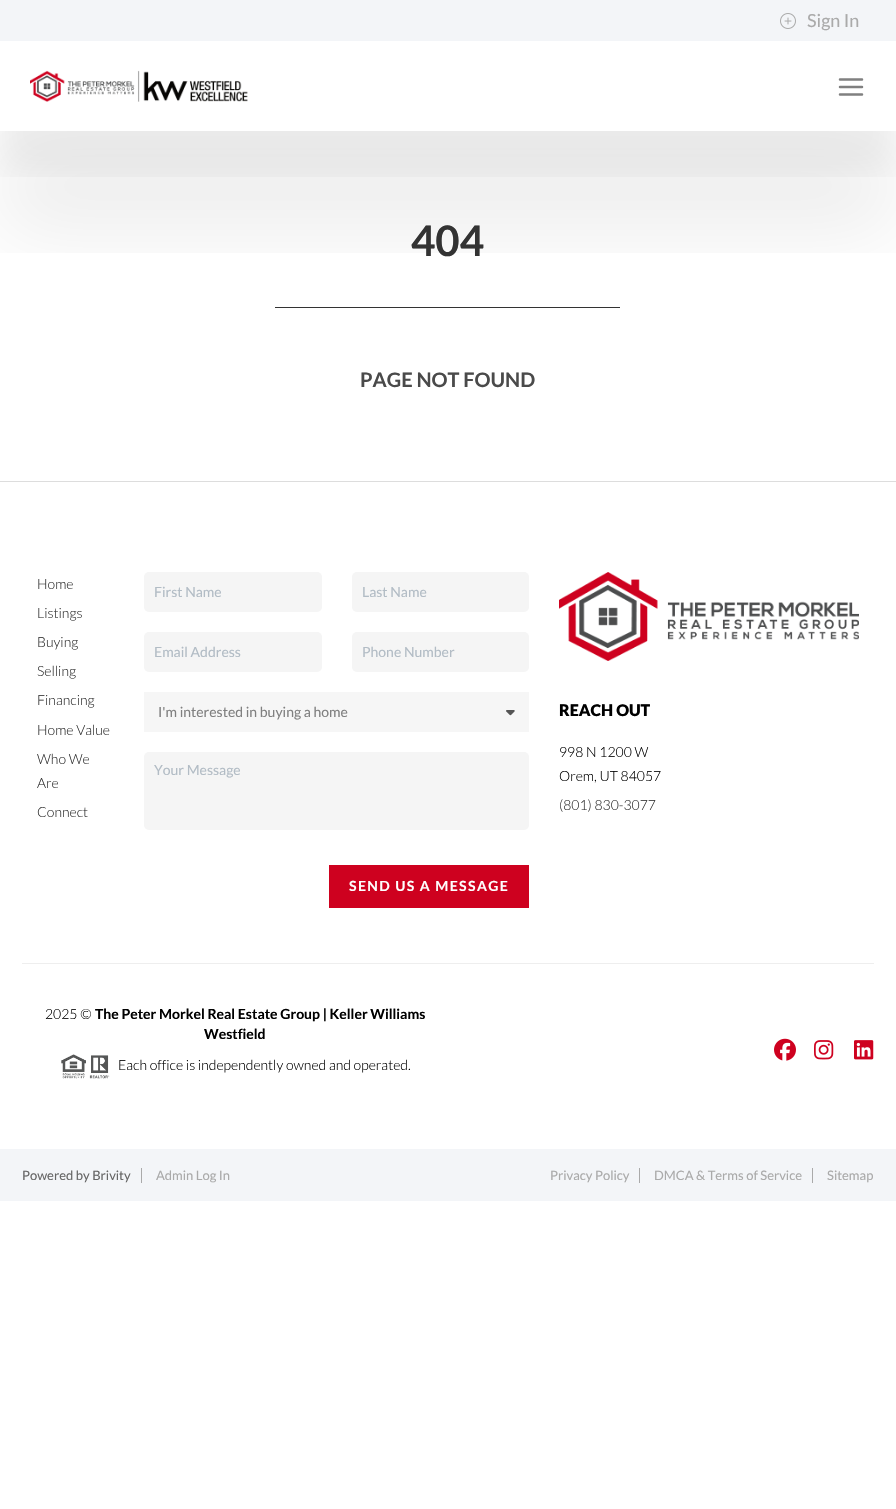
static SkFont makeFont(const char* family, int weight, float size, bool italic = false) {
  SkFontStyle style(weight, SkFontStyle::kNormal_Width,
    italic ? SkFontStyle::kItalic_Slant : SkFontStyle::kUpright_Slant);
  SkFont result(fontMgr->matchFamilyStyle(family, style), size);
  result.setSubpixel(true);
  return result;
}

static void text(SkCanvas* c, const char* s, float x, float y, const SkFont& font, SkColor color) {
  SkPaint ink(SkColor4f::FromColor(color));
  ink.setAntiAlias(true);
  c->drawString(s, x, y, font, ink);
}

static void spacedText(SkCanvas* c, const char* s, float x, float y, const SkFont& font, const SkPaint& ink, float letter, float word) {
  std::vector<SkGlyphID> glyphs(font.countText(s, strlen(s), SkTextEncoding::kUTF8));
  std::vector<float> xs(glyphs.size());
  font.textToGlyphs(s, strlen(s), SkTextEncoding::kUTF8, glyphs);
  font.getXPos(glyphs, xs, x);
  float extra = 0;
  for (size_t i = 0; i < glyphs.size(); i++) {
    xs[i] += extra;
    extra += letter + word * (glyphs[i] == font.unicharToGlyph(' '));
  }
  c->drawTextBlob(SkTextBlob::MakeFromPosHGlyphs(glyphs, xs, y, font), 0, 0, ink);
}

static void box(SkCanvas* c, float l, float t, float r, float b, SkColor color) {
  SkPaint ink(SkColor4f::FromColor(color));
  ink.setAntiAlias(true);
  c->drawRect(SkRect::MakeLTRB(l, t, r, b), ink);
}

static void roundBox(SkCanvas* c, float l, float t, float r, float b, float radius, SkColor color) {
  SkPaint ink(SkColor4f::FromColor(color));
  ink.setAntiAlias(true);
  c->drawRoundRect(SkRect::MakeLTRB(l, t, r, b), radius, radius, ink);
}

static void picture(SkCanvas* c, const char* path, float l, float t, float r, float b) {
  auto image = SkImages::DeferredFromEncodedData(SkData::MakeFromFileName(path));
  c->drawImageRect(image, SkRect::MakeLTRB(l, t, r, b), SkSamplingOptions());
}

void draw(SkCanvas* c) {
  SkPaint paint;
  paint.setAntiAlias(true);
  c->clear(0xffffffff);
  box(c, 275, 307, 620, 308, 0xff333333);
  c->save();
  c->clipRect(SkRect::MakeLTRB(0, 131, 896, 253));
  paint.setColor(0x12000000);
  paint.setMaskFilter(SkMaskFilter::MakeBlur(kNormal_SkBlurStyle, 40));
  c->drawRect(SkRect::MakeLTRB(0, 141, 896, 231), paint);
  paint.setMaskFilter(nullptr);
  c->restore();
  c->save();
  c->clipRect(SkRect::MakeLTRB(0, 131, 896, 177));
  paint.setColor(0x0d000000);
  paint.setMaskFilter(SkMaskFilter::MakeBlur(kNormal_SkBlurStyle, 16.5f));
  c->drawRect(SkRect::MakeLTRB(0, 83, 896, 173), paint);
  paint.setMaskFilter(nullptr);
  c->restore();
  box(c, 0, 0, 896, 41, 0xfff3f5f8);
  picture(c, "img_01.png", 780, 13, 796, 29);
  SkFont face1 = makeFont("Lato", 400, 18);
  text(c, "Sign In", 807, 27, face1, 0xffaaaaaa);
  picture(c, "img_02.png", 30, 70, 248, 102);
  paint.setStyle(SkPaint::kStroke_Style);
  paint.setStrokeWidth(2.5f);
  paint.setStrokeCap(SkPaint::kRound_Cap);
  paint.setStrokeJoin(SkPaint::kRound_Join);
  paint.setColor(0xff808080);
  c->drawPath(SkPathBuilder().moveTo(840, 87).lineTo(862, 87).moveTo(840, 79.5f).lineTo(862, 79.5f).moveTo(840, 94.5f).lineTo(862, 94.5f).detach(), paint);
  SkFont face2 = makeFont("Lato", 700, 42);
  text(c, "404", 411, 256, face2, 0xff333333);
  SkFont face3 = makeFont("Lato", 700, 20);
  text(c, "PAGE NOT FOUND", 360, 387, face3, 0xff4a4a4a);
  box(c, 0, 481, 896, 482, 0xffdddddd);
  SkFont face4 = makeFont("Lato", 300, 14);
  text(c, "Home", 37, 589, face4, 0xff333333);
  text(c, "Listings", 37, 618, face4, 0xff333333);
  text(c, "Buying", 37, 647, face4, 0xff333333);
  text(c, "Selling", 37, 676, face4, 0xff333333);
  text(c, "Financing", 37, 705, face4, 0xff333333);
  text(c, "Home Value", 37, 735, face4, 0xff333333);
  text(c, "Who We", 37, 764, face4, 0xff333333);
  text(c, "Are", 37, 788, face4, 0xff333333);
  text(c, "Connect", 37, 817, face4, 0xff333333);
  roundBox(c, 144, 572, 322, 612, 5, 0xfff5f5f5);
  SkFont face5 = makeFont("Lato", 400, 14);
  text(c, "First Name", 154, 597, face5, 0xffb2bcc5);
  roundBox(c, 352, 572, 529, 612, 5, 0xfff5f5f5);
  text(c, "Last Name", 362, 597, face5, 0xffb2bcc5);
  roundBox(c, 144, 632, 322, 672, 5, 0xfff5f5f5);
  text(c, "Email Address", 154, 657, face5, 0xffb2bcc5);
  roundBox(c, 352, 632, 529, 672, 5, 0xfff5f5f5);
  text(c, "Phone Number", 362, 657, face5, 0xffb2bcc5);
  box(c, 144, 692, 529, 732, 0xfff6f6f6);
  text(c, "I'm interested in buying a home", 158, 717, face5, 0xff808080);
  picture(c, "img_03.png", 506, 710, 515, 716);
  roundBox(c, 144, 752, 529, 830, 5, 0xfff5f5f5);
  text(c, "Your Message", 154, 775, face5, 0xffb2bcc5);
  box(c, 329, 865, 529, 908, 0xffce011f);
  SkFont face6 = makeFont("Lato", 700, 14);
  paint.setStyle(SkPaint::kFill_Style);
  paint.setColor(0xffffffff);
  spacedText(c, "SEND US A MESSAGE", 349, 891, face6, paint, 1.4f, 0);
  picture(c, "img_04.png", 559, 572, 859, 661);
  SkFont face7 = makeFont("Lato", 900, 16);
  text(c, "REACH OUT", 559, 716, face7, 0xff000000);
  text(c, "998 N 1200 W", 559, 757, face4, 0xff000000);
  text(c, "Orem, UT 84057", 559, 781, face4, 0xff000000);
  text(c, "(801) 830-3077", 559, 810, face4, 0xff333333);
  box(c, 22, 963, 874, 964, 0xffeeeeee);
  text(c, "2025 ©", 45, 1019, face4, 0xff000000);
  text(c, "The Peter Morkel Real Estate Group | Keller Williams", 95, 1019, face6, 0xff000000);
  text(c, "Westfield", 204, 1039, face6, 0xff000000);
  picture(c, "img_05.png", 61, 1054, 110, 1079);
  text(c, "Each office is independently owned and operated.", 118, 1070, face4, 0xff000000);
  picture(c, "img_06.png", 774, 1038, 796, 1061);
  picture(c, "img_07.png", 814, 1040, 834, 1060);
  picture(c, "img_08.png", 854, 1040, 874, 1060);
  box(c, 0, 1149, 896, 1201, 0xfff3f5f8);
  SkFont face8 = makeFont("Lato", 400, 13);
  text(c, "Powered by Brivity", 22, 1180, face8, 0xff666666);
  box(c, 141, 1168, 142, 1183, 0xffaaaaaa);
  text(c, "Admin Log In", 156, 1180, face8, 0xffaaaaaa);
  text(c, "Privacy Policy", 550, 1180, face8, 0xffaaaaaa);
  box(c, 639, 1168, 640, 1183, 0xffaaaaaa);
  text(c, "DMCA & Terms of Service", 654, 1180, face8, 0xffaaaaaa);
  box(c, 812, 1168, 813, 1183, 0xffaaaaaa);
  text(c, "Sitemap", 827, 1180, face8, 0xffaaaaaa);
}
